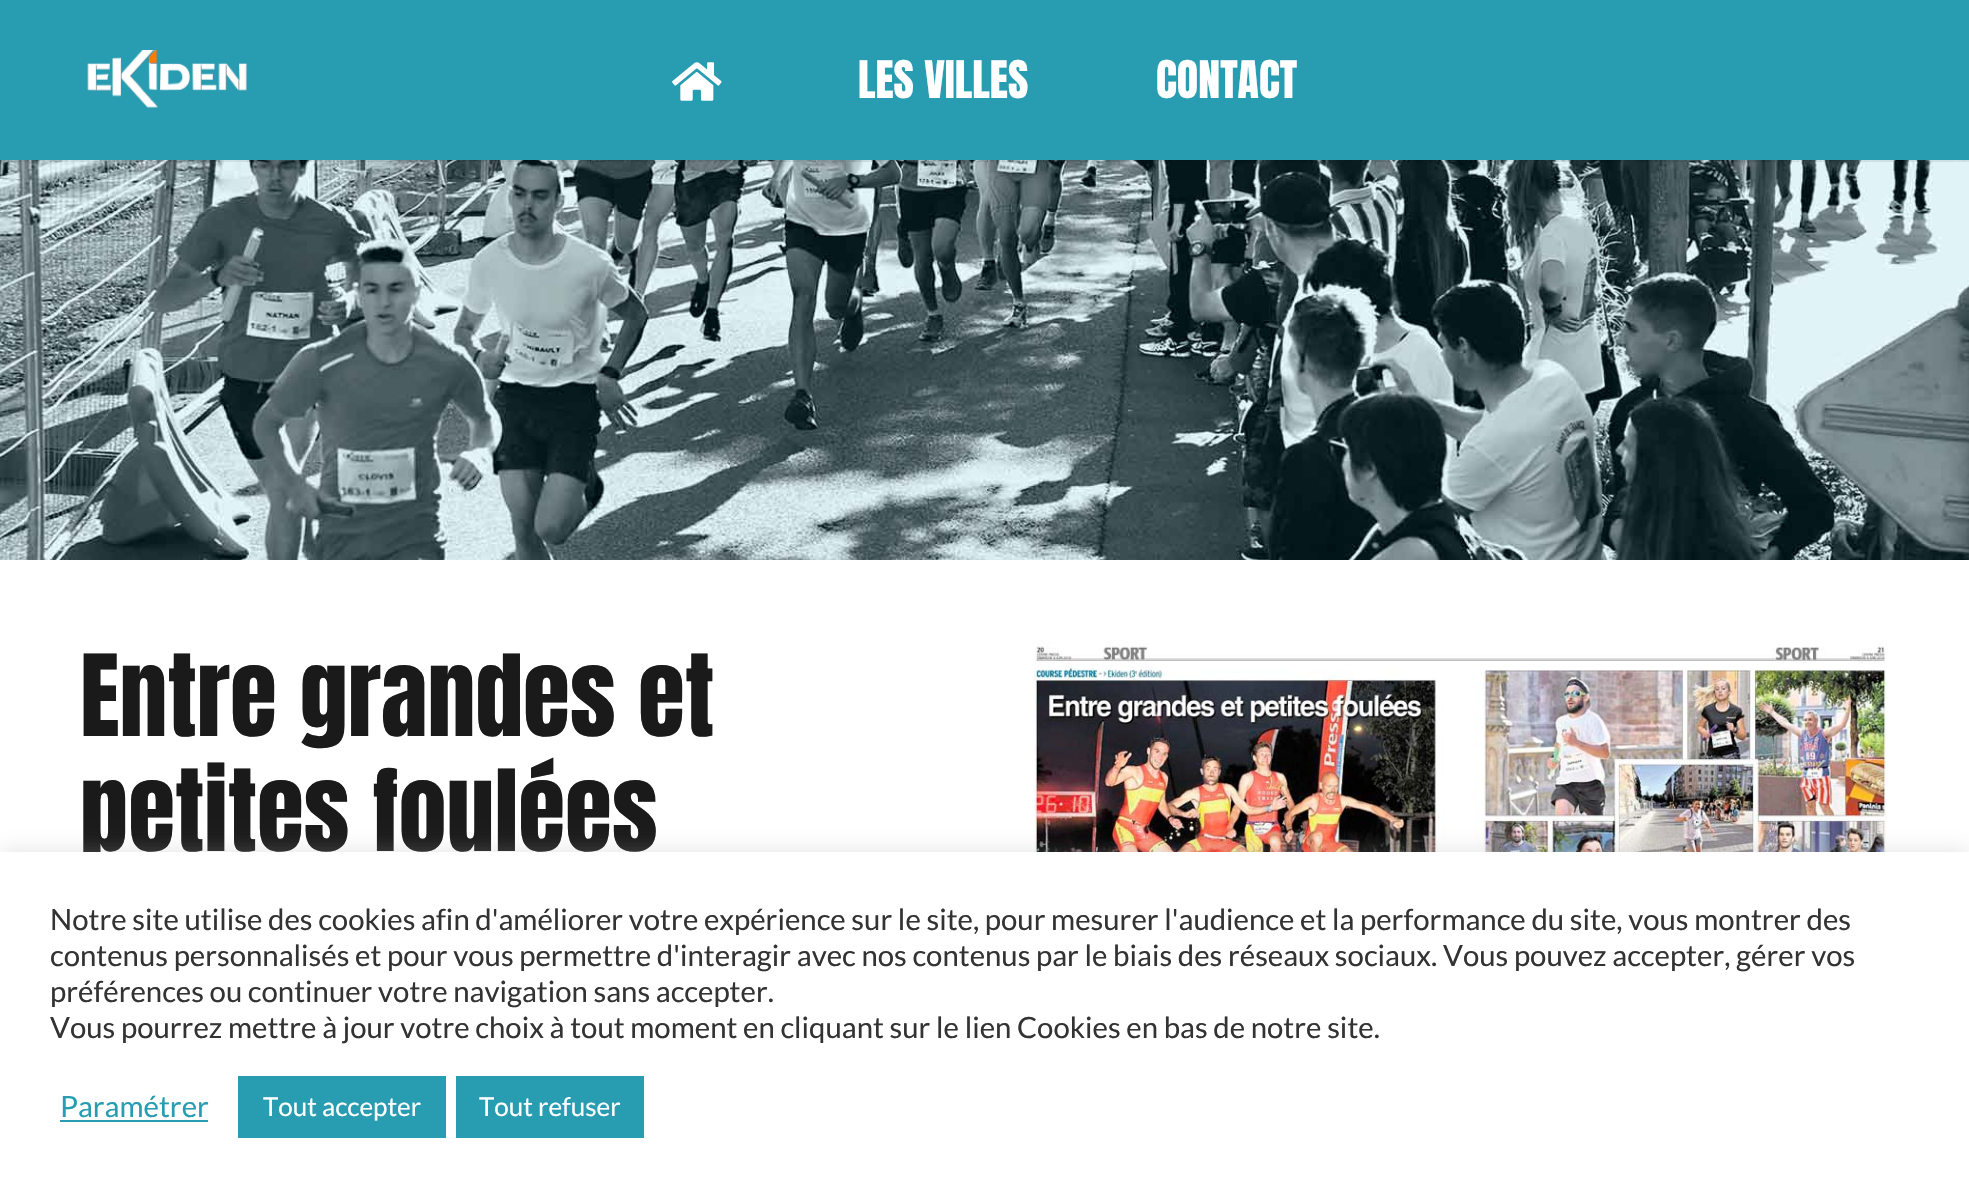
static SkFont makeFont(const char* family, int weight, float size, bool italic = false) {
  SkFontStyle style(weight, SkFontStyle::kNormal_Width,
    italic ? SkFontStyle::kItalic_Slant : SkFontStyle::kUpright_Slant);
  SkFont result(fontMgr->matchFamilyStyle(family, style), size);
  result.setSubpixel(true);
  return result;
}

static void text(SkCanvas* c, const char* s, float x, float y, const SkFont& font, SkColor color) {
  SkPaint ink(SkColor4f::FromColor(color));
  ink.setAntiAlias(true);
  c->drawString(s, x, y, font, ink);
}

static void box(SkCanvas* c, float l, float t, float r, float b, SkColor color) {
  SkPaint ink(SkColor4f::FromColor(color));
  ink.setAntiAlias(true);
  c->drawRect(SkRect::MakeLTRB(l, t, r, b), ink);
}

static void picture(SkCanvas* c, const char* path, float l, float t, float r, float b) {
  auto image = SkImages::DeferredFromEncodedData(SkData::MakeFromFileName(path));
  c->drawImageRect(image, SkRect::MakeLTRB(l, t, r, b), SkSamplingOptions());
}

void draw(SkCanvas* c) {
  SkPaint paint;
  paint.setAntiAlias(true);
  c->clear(0xffffffff);
  picture(c, "img_03.png", 0, 160, 1969, 560);
  box(c, 0, 160, 1969, 162, 0x14000000);
  box(c, 0, 0, 1969, 160, 0xff289cb1);
  picture(c, "img_01.png", 87, 50, 247, 109);
  picture(c, "img_02.png", 672, 62, 722, 101);
  SkFont face1 = makeFont("Anton", 400, 44);
  text(c, "LES VILLES", 858, 98, face1, 0xffffffff);
  text(c, "CONTACT", 1156, 98, face1, 0xffffffff);
  SkFont face2 = makeFont("Anton", 400, 96);
  text(c, "Entre grandes et", 80, 736, face2, 0xff1a1a1a);
  text(c, "petites foulées", 80, 851, face2, 0xff1a1a1a);
  picture(c, "img_04.png", 1034, 640, 1887, 852);
  paint.setColor(0x4dacabab);
  paint.setMaskFilter(SkMaskFilter::MakeBlur(kNormal_SkBlurStyle, 10));
  c->drawRect(SkRect::MakeLTRB(0, 850, 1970, 1196), paint);
  paint.setMaskFilter(nullptr);
  box(c, 0, 852, 1969, 1197, 0xffffffff);
  SkFont face3 = makeFont("Lato", 400, 29.33f);
  text(c, "Notre site utilise des cookies afin d'améliorer votre expérience sur le site, pour mesurer l'audience et la performance du site, vous montrer des", 50, 930, face3, 0xff333333);
  text(c, "contenus personnalisés et pour vous permettre d'interagir avec nos contenus par le biais des réseaux sociaux. Vous pouvez accepter, gérer vos", 50, 966, face3, 0xff333333);
  text(c, "préférences ou continuer votre navigation sans accepter.", 50, 1002, face3, 0xff333333);
  text(c, "Vous pourrez mettre à jour votre choix à tout moment en cliquant sur le lien Cookies en bas de notre site.", 50, 1038, face3, 0xff333333);
  text(c, "Paramétrer", 60, 1117, face3, 0xff289cb1);
  box(c, 60, 1120, 208, 1122, 0xff289cb1);
  box(c, 238, 1076, 446, 1138, 0xff289cb1);
  SkFont face4 = makeFont("Lato", 400, 26);
  text(c, "Tout accepter", 263, 1116, face4, 0xffffffff);
  box(c, 456, 1076, 644, 1138, 0xff289cb1);
  text(c, "Tout refuser", 479, 1116, face4, 0xffffffff);
}
